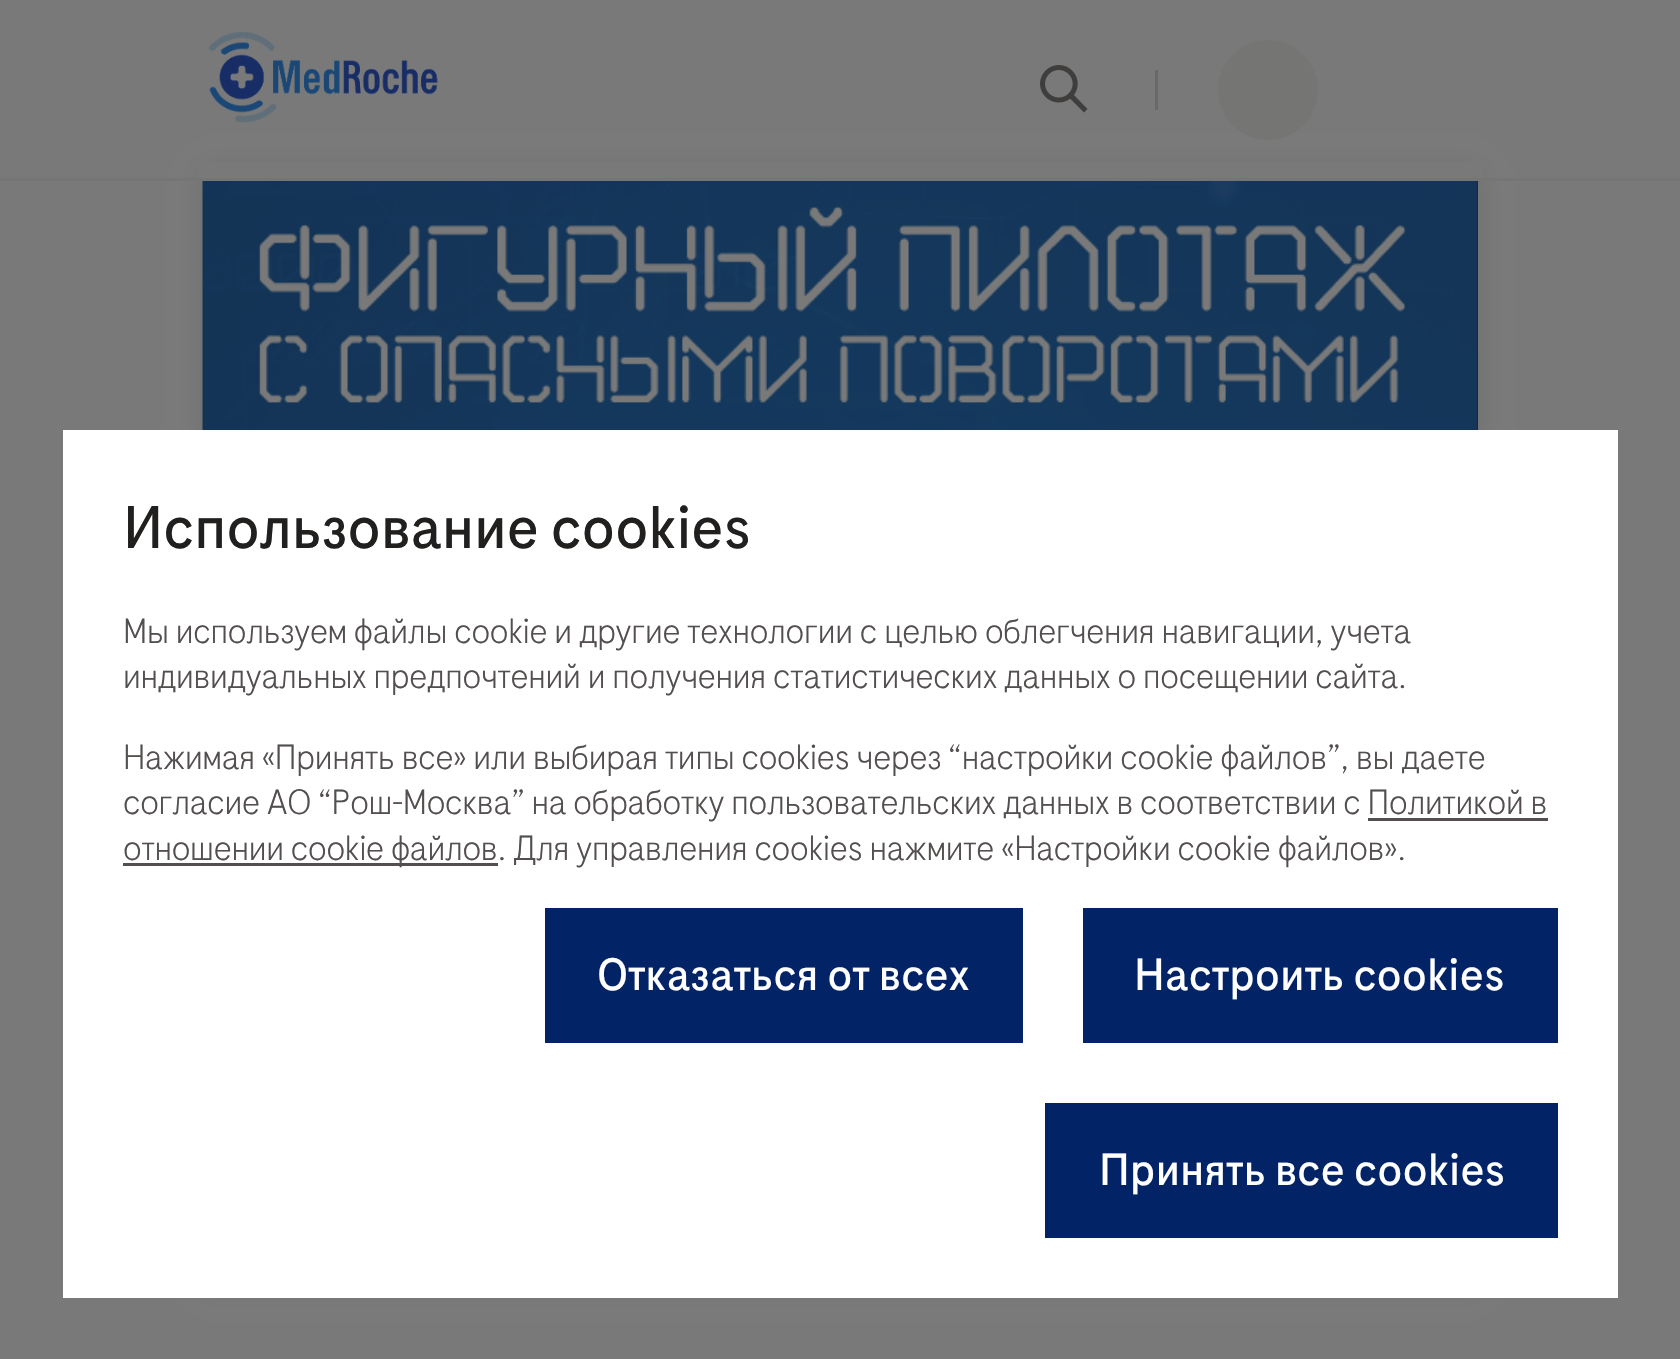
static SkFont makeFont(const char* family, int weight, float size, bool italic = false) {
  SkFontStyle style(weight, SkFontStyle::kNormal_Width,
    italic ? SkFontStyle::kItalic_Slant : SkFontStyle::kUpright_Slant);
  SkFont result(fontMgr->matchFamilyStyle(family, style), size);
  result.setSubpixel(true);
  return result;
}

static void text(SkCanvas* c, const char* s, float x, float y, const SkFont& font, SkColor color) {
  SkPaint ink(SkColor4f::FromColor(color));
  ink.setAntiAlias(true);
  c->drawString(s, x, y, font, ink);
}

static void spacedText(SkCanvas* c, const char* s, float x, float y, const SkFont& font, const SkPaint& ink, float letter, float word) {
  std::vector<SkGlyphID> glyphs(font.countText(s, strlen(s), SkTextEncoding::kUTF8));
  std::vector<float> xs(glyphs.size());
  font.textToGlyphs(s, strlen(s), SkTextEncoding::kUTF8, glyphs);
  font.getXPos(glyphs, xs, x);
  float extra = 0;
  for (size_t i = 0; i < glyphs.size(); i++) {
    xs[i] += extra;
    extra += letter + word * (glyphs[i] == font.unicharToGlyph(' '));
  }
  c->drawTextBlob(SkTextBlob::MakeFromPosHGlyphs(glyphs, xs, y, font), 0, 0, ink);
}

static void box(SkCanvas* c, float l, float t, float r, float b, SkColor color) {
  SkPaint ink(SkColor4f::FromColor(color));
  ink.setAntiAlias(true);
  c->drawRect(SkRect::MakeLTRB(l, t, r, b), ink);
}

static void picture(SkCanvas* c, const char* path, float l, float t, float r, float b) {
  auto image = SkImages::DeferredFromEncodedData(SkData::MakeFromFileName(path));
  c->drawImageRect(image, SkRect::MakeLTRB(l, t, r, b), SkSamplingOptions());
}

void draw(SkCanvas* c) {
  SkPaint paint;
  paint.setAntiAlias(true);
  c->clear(0xff797979);
  paint.setColor(0x1a131313);
  paint.setMaskFilter(SkMaskFilter::MakeBlur(kNormal_SkBlurStyle, 12.5f));
  c->drawRect(SkRect::MakeLTRB(203, 170, 1478, 1285), paint);
  paint.setMaskFilter(nullptr);
  box(c, 198, 162, 1483, 178, 0xff797979);
  box(c, 0, 178, 1680, 181, 0xff757574);
  picture(c, "img_01.png", 208, 31, 438, 123);
  picture(c, "img_02.png", 1040, 65, 1088, 113);
  box(c, 1155, 70, 1158, 110, 0xff6b6967);
  paint.setColor(0xff757574);
  c->drawCircle(1268, 90, 50, paint);
  box(c, 1477, 181, 1478, 430, 0xff1a1a1e);
  picture(c, "img_03.png", 202, 181, 1478, 430);
  box(c, 63, 430, 1618, 1298, 0xffffffff);
  SkFont face1 = makeFont("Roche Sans", 400, 60);
  paint.setColor(0xff21201f);
  spacedText(c, "Использование cookies", 123, 548, face1, paint, -0.25f, 0);
  SkFont face2 = makeFont("Roche Sans", 300, 35);
  paint.setColor(0xff544f4f);
  spacedText(c, "Мы используем файлы cookie и другие технологии с целью облегчения навигации, учета", 123, 643, face2, paint, -0.25f, 0);
  spacedText(c, "индивидуальных предпочтений и получения статистических данных о посещении сайта.", 123, 688, face2, paint, -0.25f, 0);
  spacedText(c, "Нажимая «Принять все» или выбирая типы cookies через “настройки cookie файлов”, вы даете", 123, 769, face2, paint, -0.25f, 0);
  spacedText(c, "согласие АО “Рош-Москва” на обработку пользовательских данных в соответствии с Политикой в", 123, 814, face2, paint, -0.25f, 0);
  box(c, 123, 863, 498, 866, 0xff544f4f);
  spacedText(c, "отношении cookie файлов. Для управления cookies нажмите «Настройки cookie файлов».", 123, 860, face2, paint, -0.25f, 0);
  box(c, 1368, 818, 1548, 821, 0xff544f4f);
  box(c, 545, 908, 1023, 1043, 0xff022366);
  SkFont face3 = makeFont("Roche Sans", 400, 45);
  text(c, "Отказаться от всех", 597, 990, face3, 0xffffffff);
  box(c, 1083, 908, 1558, 1043, 0xff022366);
  text(c, "Настроить cookies", 1134, 990, face3, 0xffffffff);
  box(c, 1045, 1103, 1558, 1238, 0xff022366);
  text(c, "Принять все cookies", 1099, 1185, face3, 0xffffffff);
}
